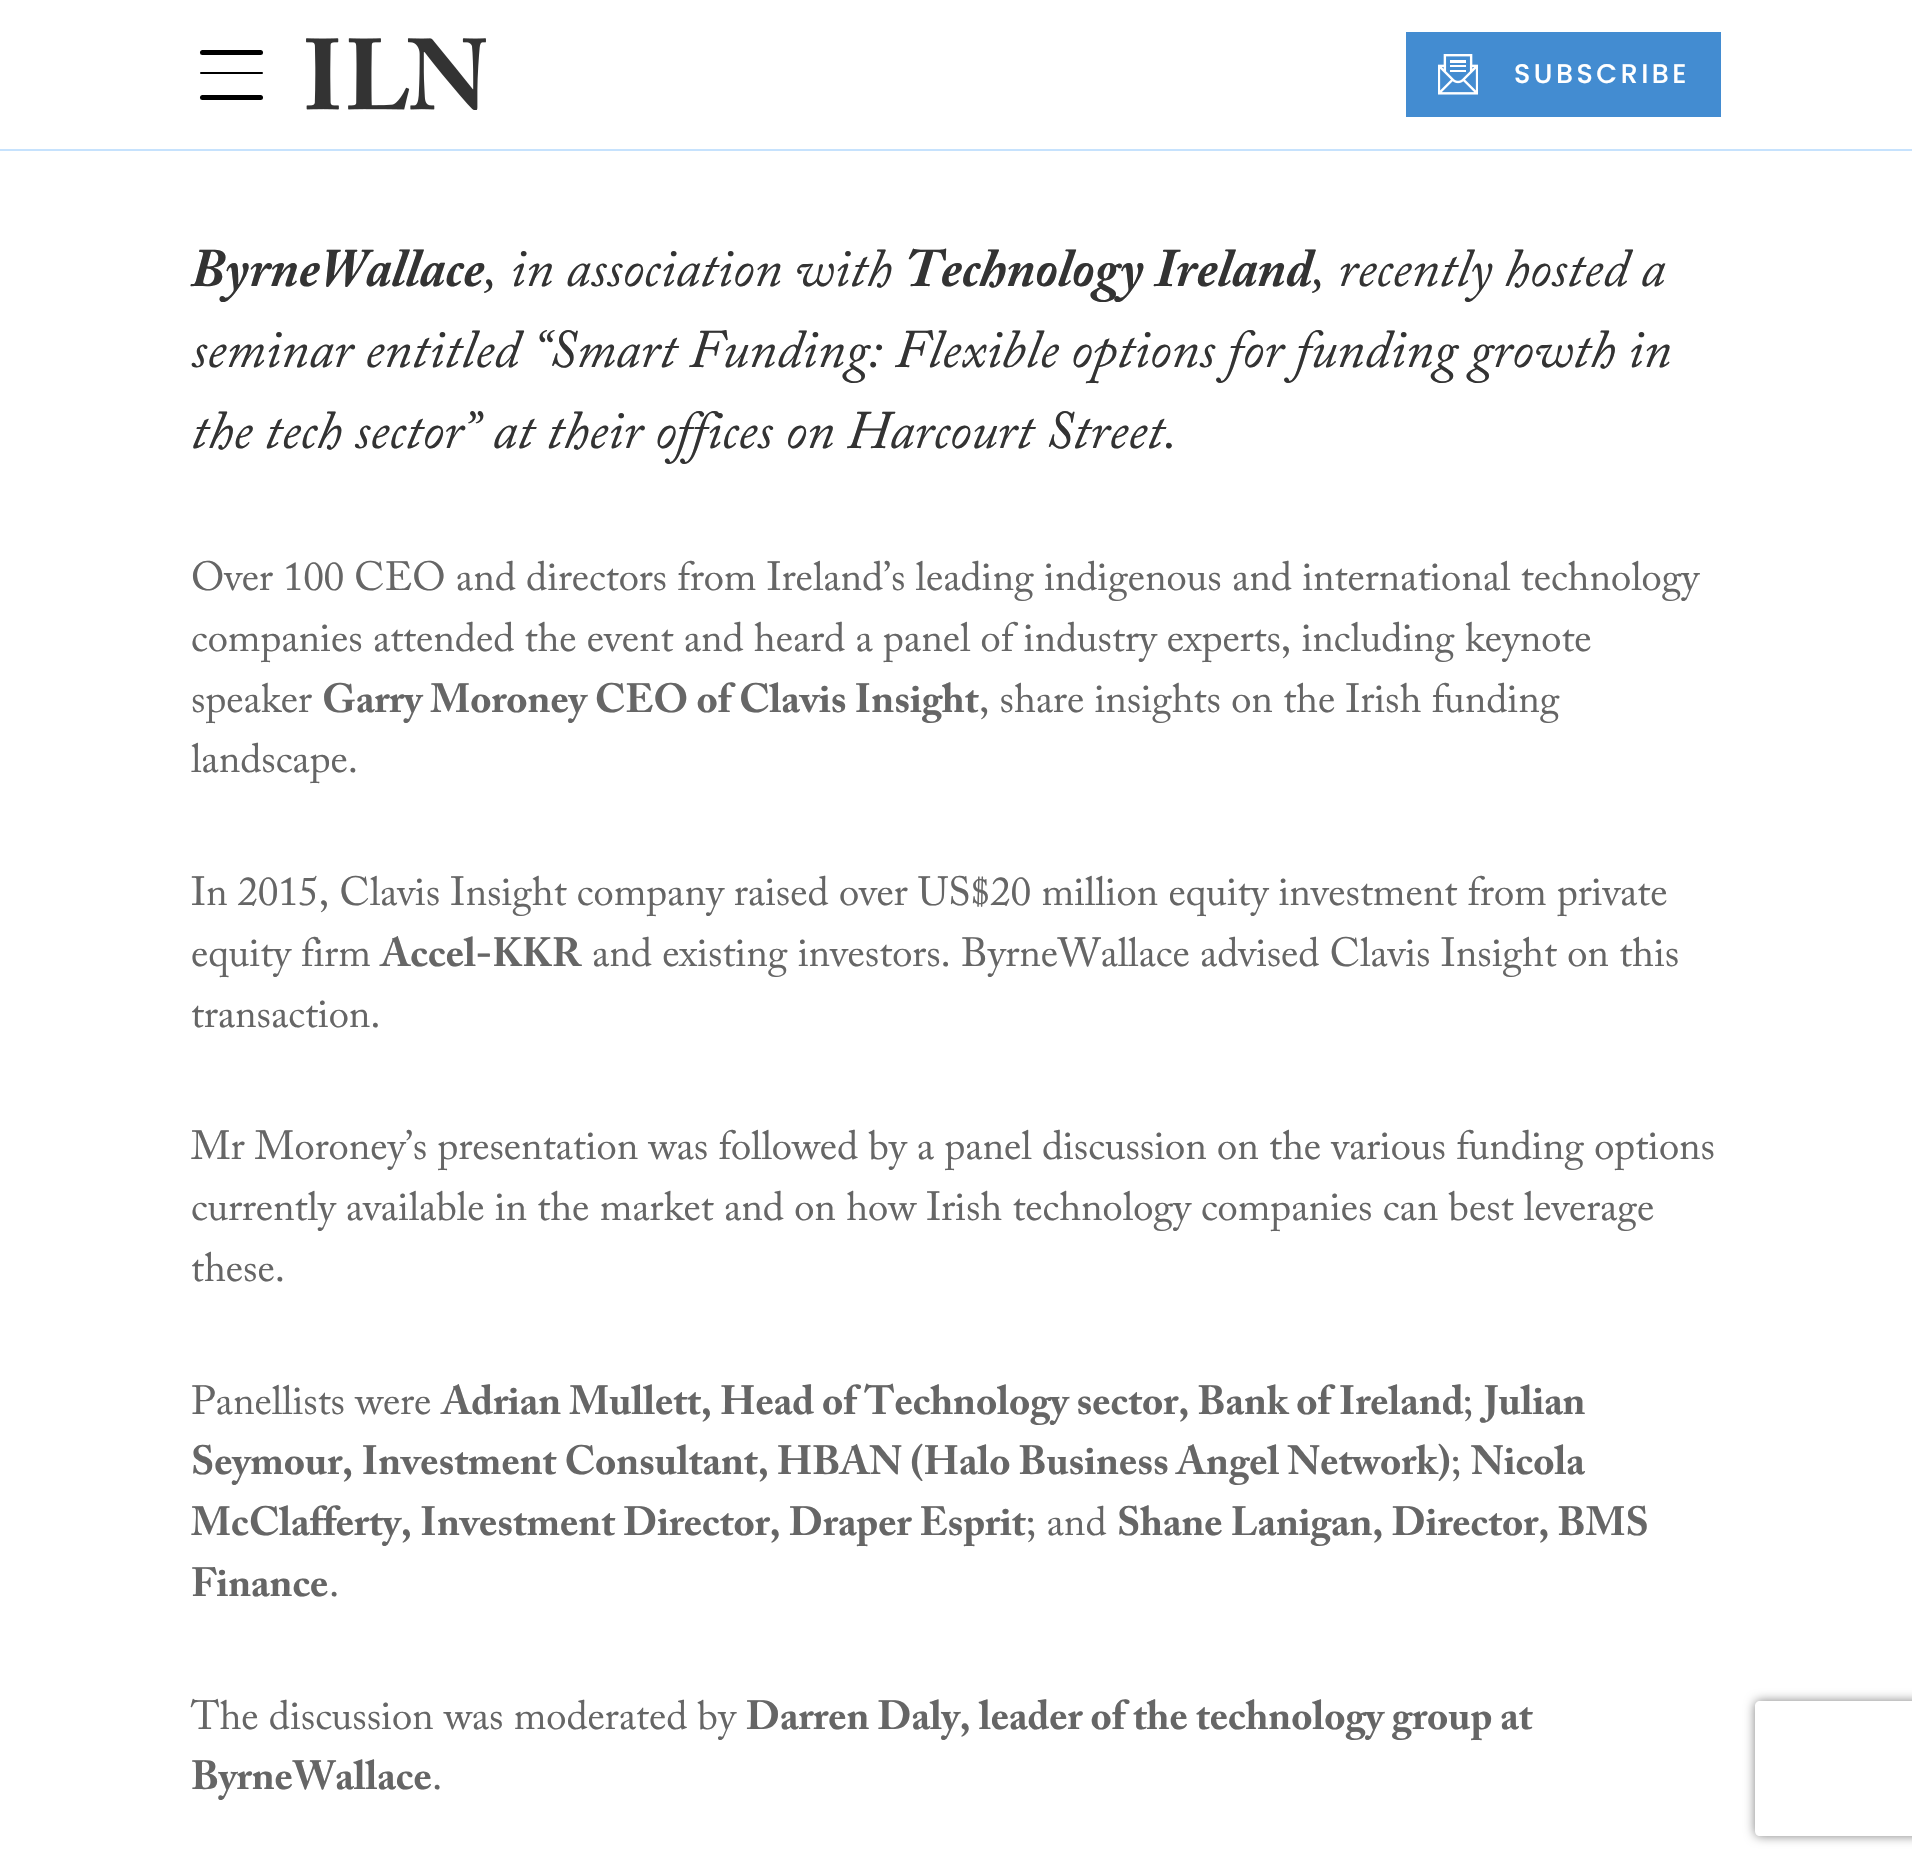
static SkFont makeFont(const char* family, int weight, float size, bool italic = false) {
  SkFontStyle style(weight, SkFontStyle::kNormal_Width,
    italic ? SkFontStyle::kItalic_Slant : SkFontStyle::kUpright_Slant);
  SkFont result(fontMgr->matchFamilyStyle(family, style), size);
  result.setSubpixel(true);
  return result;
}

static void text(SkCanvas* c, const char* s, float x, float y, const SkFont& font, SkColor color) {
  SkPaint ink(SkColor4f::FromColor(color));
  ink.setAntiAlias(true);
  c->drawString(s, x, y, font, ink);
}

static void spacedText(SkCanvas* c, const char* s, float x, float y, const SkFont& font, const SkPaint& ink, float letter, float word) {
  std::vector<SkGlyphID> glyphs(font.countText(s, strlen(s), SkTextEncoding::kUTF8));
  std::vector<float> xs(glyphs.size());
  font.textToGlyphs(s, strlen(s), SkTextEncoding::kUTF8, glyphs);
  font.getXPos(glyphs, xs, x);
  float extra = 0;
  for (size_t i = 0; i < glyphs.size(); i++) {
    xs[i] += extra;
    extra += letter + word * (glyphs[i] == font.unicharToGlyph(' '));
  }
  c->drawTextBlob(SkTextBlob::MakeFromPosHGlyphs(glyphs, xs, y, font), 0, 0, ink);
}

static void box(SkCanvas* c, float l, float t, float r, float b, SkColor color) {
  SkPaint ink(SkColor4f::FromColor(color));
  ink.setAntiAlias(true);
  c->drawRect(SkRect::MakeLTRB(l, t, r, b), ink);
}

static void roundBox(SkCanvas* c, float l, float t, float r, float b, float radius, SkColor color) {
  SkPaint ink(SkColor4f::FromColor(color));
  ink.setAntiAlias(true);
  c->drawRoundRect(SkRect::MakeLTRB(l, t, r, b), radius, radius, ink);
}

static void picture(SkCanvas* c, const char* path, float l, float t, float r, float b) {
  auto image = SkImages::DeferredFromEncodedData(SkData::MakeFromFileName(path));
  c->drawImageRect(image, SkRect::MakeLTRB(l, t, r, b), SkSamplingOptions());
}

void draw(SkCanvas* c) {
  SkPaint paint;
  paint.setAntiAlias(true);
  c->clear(0xffffffff);
  box(c, 0, 149, 1912, 151, 0xffc6e2fd);
  roundBox(c, 200, 50, 263, 55, 2.5f, 0xff000000);
  roundBox(c, 200, 72, 263, 74, 1, 0xff000000);
  roundBox(c, 200, 95, 263, 100, 2.5f, 0xff000000);
  picture(c, "img_01.png", 306, 38, 486, 110);
  box(c, 1406, 32, 1721, 117, 0xff438cd1);
  picture(c, "img_02.png", 1438, 54, 1478, 95);
  SkFont face1 = makeFont("Poppins", 500, 27);
  paint.setColor(0xffffffff);
  spacedText(c, "SUBSCRIBE", 1514, 83, face1, paint, 3.5f, 0);
  SkFont face2 = makeFont("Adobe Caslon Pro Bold", 700, 54, true);
  text(c, "ByrneWallace", 191, 286, face2, 0xff333333);
  SkFont face3 = makeFont("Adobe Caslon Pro", 400, 54, true);
  text(c, ", in association with", 484, 286, face3, 0xff333333);
  text(c, "Technology Ireland", 905, 286, face2, 0xff333333);
  text(c, ", recently hosted a", 1312, 286, face3, 0xff333333);
  text(c, "seminar entitled “Smart Funding: Flexible options for funding growth in", 191, 367, face3, 0xff333333);
  text(c, "the tech sector” at their offices on Harcourt Street.", 191, 448, face3, 0xff333333);
  SkFont face4 = makeFont("Adobe Caslon Pro", 400, 40.5f);
  text(c, "Over 100 CEO and directors from Ireland’s leading indigenous and international technology", 191, 590, face4, 0xff666666);
  text(c, "companies attended the event and heard a panel of industry experts, including keynote", 191, 651, face4, 0xff666666);
  text(c, "speaker", 191, 712, face4, 0xff666666);
  SkFont face5 = makeFont("Adobe Caslon Pro Bold", 700, 40.5f);
  text(c, "Garry Moroney CEO of Clavis Insight", 322, 712, face5, 0xff666666);
  text(c, ", share insights on the Irish funding", 979, 712, face4, 0xff666666);
  text(c, "landscape.", 191, 772, face4, 0xff666666);
  text(c, "In 2015, Clavis Insight company raised over US$20 million equity investment from private", 191, 905, face4, 0xff666666);
  text(c, "equity firm", 191, 966, face4, 0xff666666);
  text(c, "Accel-KKR", 381, 966, face5, 0xff666666);
  text(c, "and existing investors. ByrneWallace advised Clavis Insight on this", 592, 966, face4, 0xff666666);
  text(c, "transaction.", 191, 1027, face4, 0xff666666);
  text(c, "Mr Moroney’s presentation was followed by a panel discussion on the various funding options", 191, 1159, face4, 0xff666666);
  text(c, "currently available in the market and on how Irish technology companies can best leverage", 191, 1220, face4, 0xff666666);
  text(c, "these.", 191, 1281, face4, 0xff666666);
  text(c, "Panellists were", 191, 1414, face4, 0xff666666);
  text(c, "Adrian Mullett, Head of Technology sector, Bank of Ireland", 442, 1414, face5, 0xff666666);
  text(c, ";", 1463, 1414, face4, 0xff666666);
  text(c, "Julian", 1484, 1414, face5, 0xff666666);
  text(c, "Seymour, Investment Consultant, HBAN (Halo Business Angel Network)", 191, 1474, face5, 0xff666666);
  text(c, ";", 1451, 1474, face4, 0xff666666);
  text(c, "Nicola", 1471, 1474, face5, 0xff666666);
  text(c, "McClafferty, Investment Director, Draper Esprit", 191, 1535, face5, 0xff666666);
  text(c, "; and", 1026, 1535, face4, 0xff666666);
  text(c, "Shane Lanigan, Director, BMS", 1117, 1535, face5, 0xff666666);
  text(c, "Finance", 191, 1596, face5, 0xff666666);
  text(c, ".", 329, 1596, face4, 0xff666666);
  text(c, "The discussion was moderated by", 191, 1729, face4, 0xff666666);
  text(c, "Darren Daly, leader of the technology group at", 746, 1729, face5, 0xff666666);
  text(c, "ByrneWallace", 191, 1789, face5, 0xff666666);
  text(c, ".", 432, 1789, face4, 0xff666666);
  c->save();
  c->clipPath(SkPathBuilder(SkPathFillType::kEvenOdd).moveTo(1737, 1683).lineTo(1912, 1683).lineTo(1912, 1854).lineTo(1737, 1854).close().moveTo(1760, 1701).lineTo(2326, 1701).cubicTo(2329, 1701, 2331, 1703, 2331, 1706).lineTo(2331, 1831).cubicTo(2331, 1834, 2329, 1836, 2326, 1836).lineTo(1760, 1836).cubicTo(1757, 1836, 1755, 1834, 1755, 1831).lineTo(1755, 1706).cubicTo(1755, 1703, 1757, 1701, 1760, 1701).close().detach(), true);
  paint.setColor(0xff808080);
  paint.setMaskFilter(SkMaskFilter::MakeBlur(kNormal_SkBlurStyle, 5.5f));
  c->drawRoundRect(SkRect::MakeLTRB(1755, 1701, 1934, 1836), 5, 5, paint);
  paint.setMaskFilter(nullptr);
  c->restore();
}
